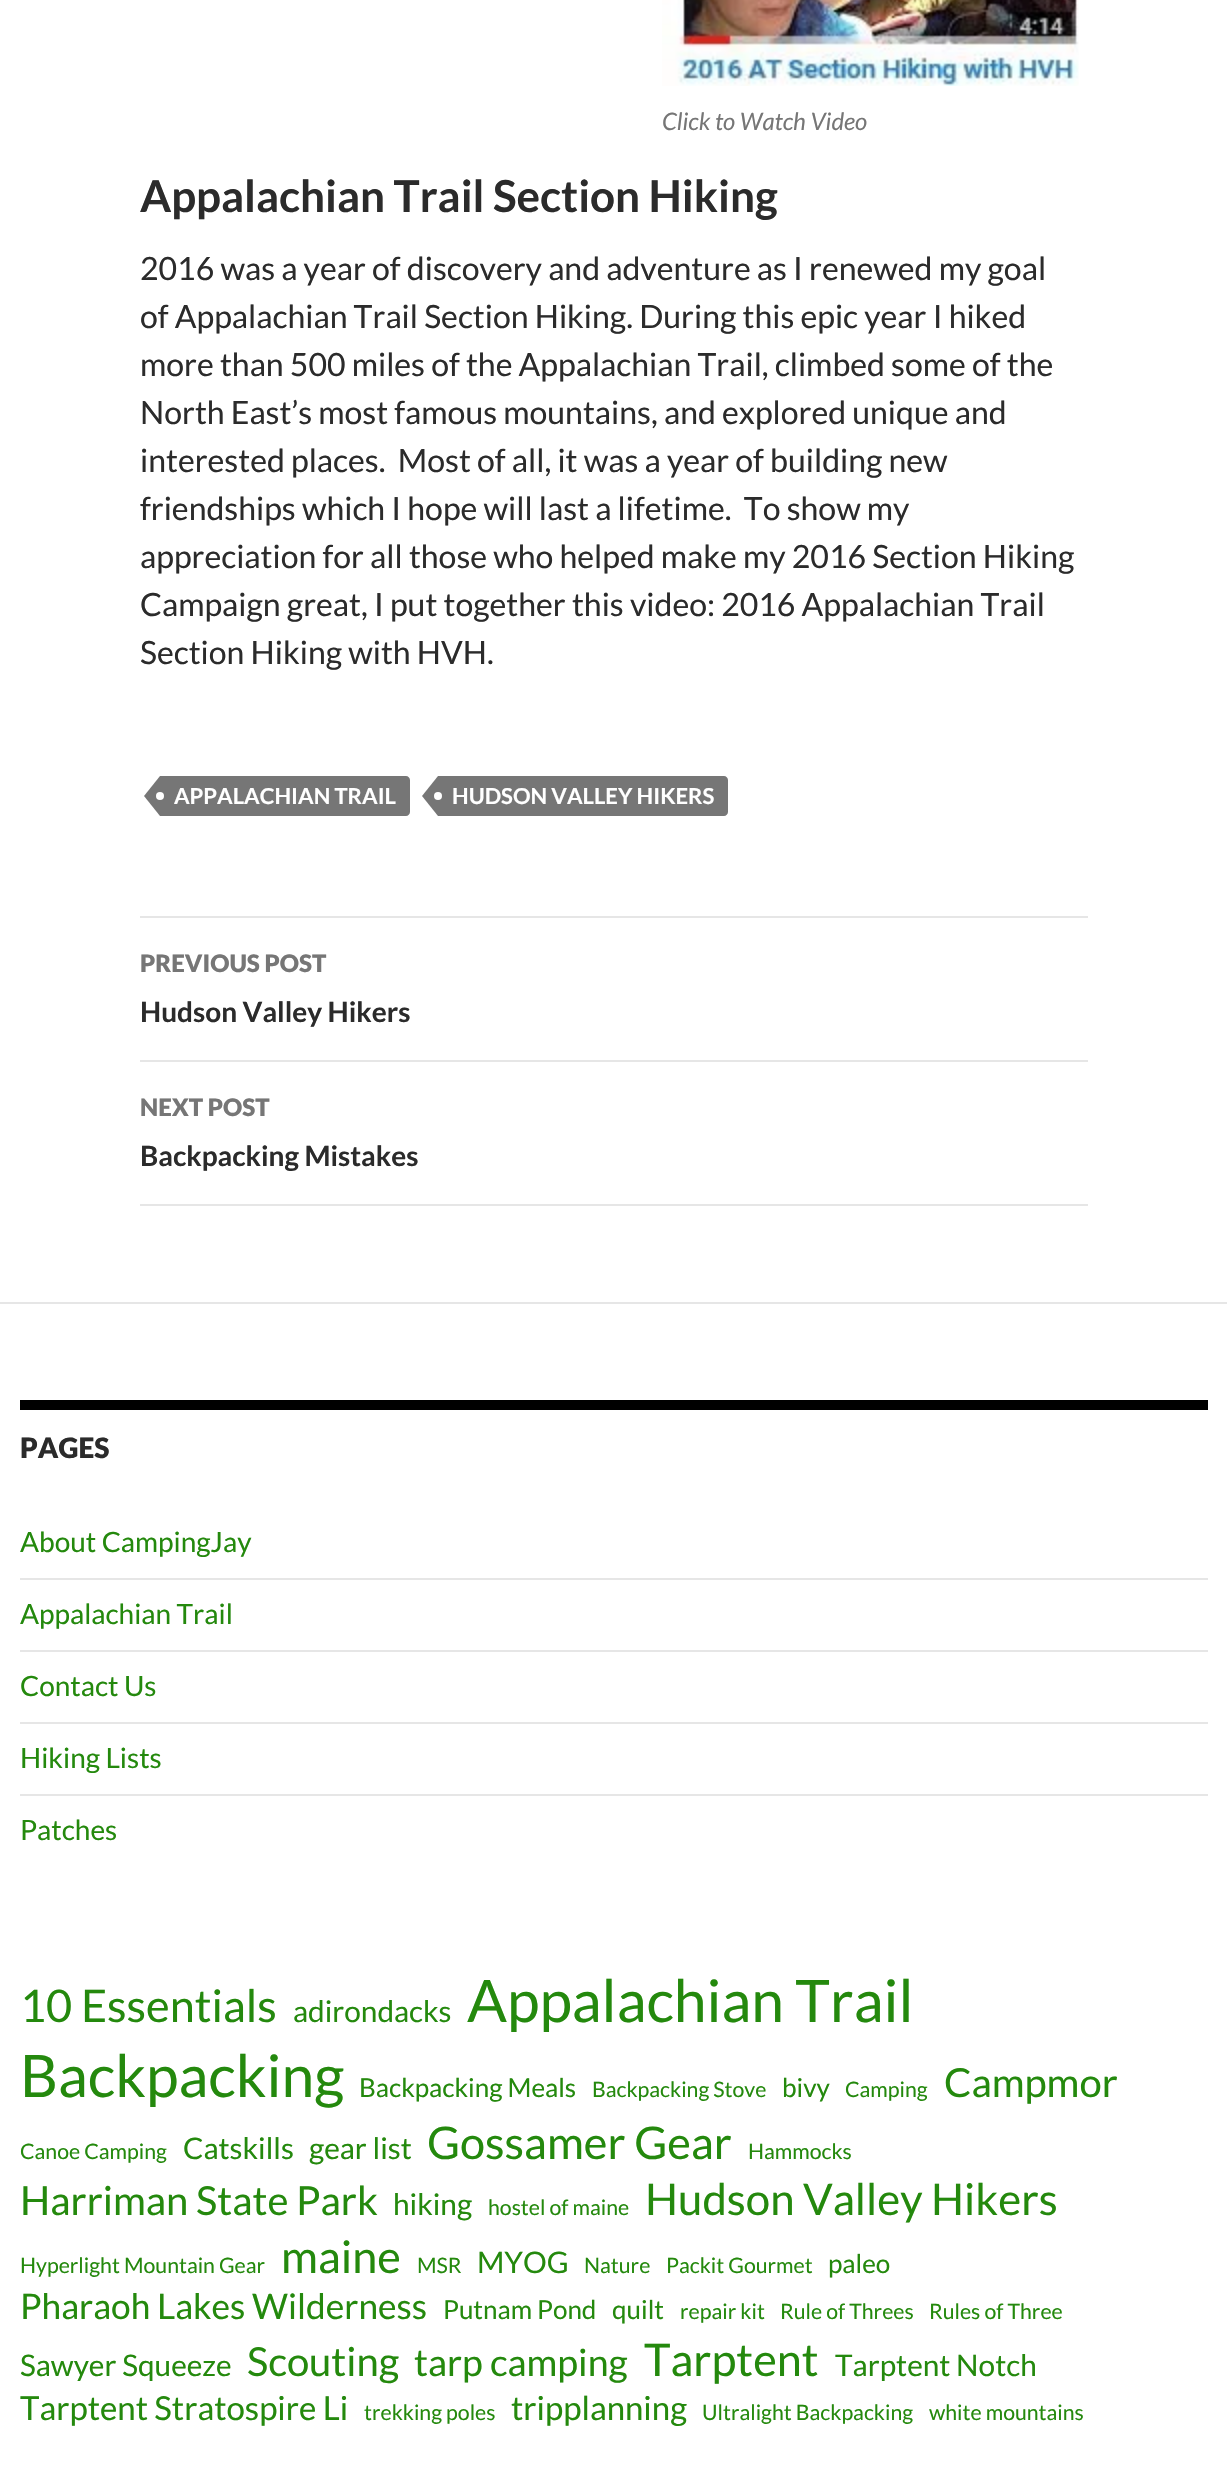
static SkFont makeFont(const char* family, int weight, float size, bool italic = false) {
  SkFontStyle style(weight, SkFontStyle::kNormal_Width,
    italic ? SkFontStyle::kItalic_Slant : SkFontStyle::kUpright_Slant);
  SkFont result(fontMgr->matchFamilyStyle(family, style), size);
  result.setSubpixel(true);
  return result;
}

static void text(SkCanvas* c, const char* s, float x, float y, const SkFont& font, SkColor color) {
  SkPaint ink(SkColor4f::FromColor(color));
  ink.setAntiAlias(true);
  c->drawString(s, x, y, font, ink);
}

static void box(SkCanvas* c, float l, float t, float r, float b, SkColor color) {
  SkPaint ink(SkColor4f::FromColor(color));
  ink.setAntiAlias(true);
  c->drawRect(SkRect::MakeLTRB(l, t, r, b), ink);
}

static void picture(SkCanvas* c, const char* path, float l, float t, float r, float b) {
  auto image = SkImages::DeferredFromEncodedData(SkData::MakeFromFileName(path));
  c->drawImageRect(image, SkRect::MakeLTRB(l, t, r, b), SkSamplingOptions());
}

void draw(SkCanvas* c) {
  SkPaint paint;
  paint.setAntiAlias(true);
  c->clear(0xffffffff);
  picture(c, "img_01.png", 662, 0, 1079, 86);
  SkFont face1 = makeFont("Lato", 400, 24, true);
  text(c, "Click to Watch Video", 662, 130, face1, 0xff767676);
  SkFont face2 = makeFont("Lato", 700, 44);
  text(c, "Appalachian Trail Section Hiking", 140, 212, face2, 0xff2b2b2b);
  SkFont face3 = makeFont("Lato", 400, 32);
  text(c, "2016 was a year of discovery and adventure as I renewed my goal", 140, 280, face3, 0xff2b2b2b);
  text(c, "of Appalachian Trail Section Hiking. During this epic year I hiked", 140, 328, face3, 0xff2b2b2b);
  text(c, "more than 500 miles of the Appalachian Trail, climbed some of the", 140, 376, face3, 0xff2b2b2b);
  text(c, "North East’s most famous mountains, and explored unique and", 140, 424, face3, 0xff2b2b2b);
  text(c, "interested places.  Most of all, it was a year of building new", 140, 472, face3, 0xff2b2b2b);
  text(c, "friendships which I hope will last a lifetime.  To show my", 140, 520, face3, 0xff2b2b2b);
  text(c, "appreciation for all those who helped make my 2016 Section Hiking", 140, 568, face3, 0xff2b2b2b);
  text(c, "Campaign great, I put together this video: 2016 Appalachian Trail", 140, 616, face3, 0xff2b2b2b);
  text(c, "Section Hiking with HVH.", 140, 664, face3, 0xff2b2b2b);
  paint.setColor(0xff767676);
  c->drawPath(SkPathBuilder().moveTo(160, 776).lineTo(406, 776).cubicTo(408, 776, 410, 778, 410, 780).lineTo(410, 812).cubicTo(410, 814, 408, 816, 406, 816).lineTo(160, 816).close().detach(), paint);
  c->drawPath(SkPathBuilder().moveTo(160, 776).lineTo(160, 816).lineTo(144, 796).close().detach(), paint);
  SkFont face4 = makeFont("Lato", 700, 22);
  text(c, "APPALACHIAN TRAIL", 174, 804, face4, 0xffffffff);
  paint.setColor(0xffffffff);
  c->drawCircle(160, 796, 4, paint);
  paint.setColor(0xff767676);
  c->drawPath(SkPathBuilder().moveTo(438, 776).lineTo(724, 776).cubicTo(726, 776, 728, 778, 728, 780).lineTo(728, 812).cubicTo(728, 814, 726, 816, 724, 816).lineTo(438, 816).close().detach(), paint);
  c->drawPath(SkPathBuilder().moveTo(438, 776).lineTo(438, 816).lineTo(422, 796).close().detach(), paint);
  text(c, "HUDSON VALLEY HIKERS", 452, 804, face4, 0xffffffff);
  paint.setColor(0xffffffff);
  c->drawCircle(438, 796, 4, paint);
  box(c, 140, 916, 1088, 918, 0xffe6e6e6);
  box(c, 140, 1060, 1088, 1062, 0xffe6e6e6);
  SkFont face5 = makeFont("Lato", 900, 24);
  text(c, "PREVIOUS POST", 140, 972, face5, 0xff767676);
  SkFont face6 = makeFont("Lato", 700, 28);
  text(c, "Hudson Valley Hikers", 140, 1022, face6, 0xff2b2b2b);
  box(c, 140, 1204, 1088, 1206, 0xffe6e6e6);
  text(c, "NEXT POST", 140, 1116, face5, 0xff767676);
  text(c, "Backpacking Mistakes", 140, 1166, face6, 0xff2b2b2b);
  box(c, 0, 1302, 1227, 1304, 0xffe6e6e6);
  box(c, 20, 1400, 1208, 1410, 0xff000000);
  SkFont face7 = makeFont("Lato", 900, 28);
  text(c, "PAGES", 20, 1458, face7, 0xff2b2b2b);
  SkFont face8 = makeFont("Lato", 400, 28);
  text(c, "About CampingJay", 20, 1552, face8, 0xff24890d);
  box(c, 20, 1578, 1208, 1580, 0xffe6e6e6);
  text(c, "Appalachian Trail", 20, 1624, face8, 0xff24890d);
  box(c, 20, 1650, 1208, 1652, 0xffe6e6e6);
  text(c, "Contact Us", 20, 1696, face8, 0xff24890d);
  box(c, 20, 1722, 1208, 1724, 0xffe6e6e6);
  text(c, "Hiking Lists", 20, 1768, face8, 0xff24890d);
  box(c, 20, 1794, 1208, 1796, 0xffe6e6e6);
  text(c, "Patches", 20, 1840, face8, 0xff24890d);
  SkFont face9 = makeFont("Lato", 400, 45);
  text(c, "10 Essentials", 20, 2022, face9, 0xff24890d);
  SkFont face10 = makeFont("Lato", 400, 29.75f);
  text(c, "adirondacks", 293, 2022, face10, 0xff24890d);
  SkFont face11 = makeFont("Lato", 400, 58.75f);
  text(c, "Appalachian Trail", 467, 2022, face11, 0xff24890d);
  text(c, "Backpacking", 20, 2097, face11, 0xff24890d);
  SkFont face12 = makeFont("Lato", 400, 26);
  text(c, "Backpacking Meals", 359, 2097, face12, 0xff24890d);
  SkFont face13 = makeFont("Lato", 400, 21.25f);
  text(c, "Backpacking Stove", 592, 2097, face13, 0xff24890d);
  text(c, "bivy", 782, 2097, face12, 0xff24890d);
  text(c, "Camping", 845, 2097, face13, 0xff24890d);
  SkFont face14 = makeFont("Lato", 400, 40);
  text(c, "Campmor", 944, 2097, face14, 0xff24890d);
  text(c, "Canoe Camping", 20, 2159, face13, 0xff24890d);
  text(c, "Catskills", 183, 2159, face10, 0xff24890d);
  text(c, "gear list", 309, 2159, face10, 0xff24890d);
  text(c, "Gossamer Gear", 427, 2159, face9, 0xff24890d);
  text(c, "Hammocks", 748, 2159, face13, 0xff24890d);
  text(c, "Harriman State Park", 20, 2215, face14, 0xff24890d);
  text(c, "hiking", 393, 2215, face10, 0xff24890d);
  text(c, "hostel of maine", 488, 2215, face13, 0xff24890d);
  SkFont face15 = makeFont("Lato", 400, 43.75f);
  text(c, "Hudson Valley Hikers", 645, 2215, face15, 0xff24890d);
  text(c, "Hyperlight Mountain Gear", 20, 2273, face13, 0xff24890d);
  text(c, "maine", 281, 2273, face9, 0xff24890d);
  text(c, "MSR", 417, 2273, face13, 0xff24890d);
  text(c, "MYOG", 477, 2273, face10, 0xff24890d);
  text(c, "Nature", 584, 2273, face13, 0xff24890d);
  text(c, "Packit Gourmet", 666, 2273, face13, 0xff24890d);
  text(c, "paleo", 828, 2273, face12, 0xff24890d);
  SkFont face16 = makeFont("Lato", 400, 35.25f);
  text(c, "Pharaoh Lakes Wilderness", 20, 2319, face16, 0xff24890d);
  text(c, "Putnam Pond", 443, 2319, face12, 0xff24890d);
  text(c, "quilt", 612, 2319, face12, 0xff24890d);
  text(c, "repair kit", 680, 2319, face13, 0xff24890d);
  text(c, "Rule of Threes", 780, 2319, face13, 0xff24890d);
  text(c, "Rules of Three", 929, 2319, face13, 0xff24890d);
  text(c, "Sawyer Squeeze", 20, 2376, face10, 0xff24890d);
  text(c, "Scouting", 247, 2376, face14, 0xff24890d);
  SkFont face17 = makeFont("Lato", 400, 37.5f);
  text(c, "tarp camping", 414, 2376, face17, 0xff24890d);
  text(c, "Tarptent", 644, 2376, face9, 0xff24890d);
  text(c, "Tarptent Notch", 835, 2376, face10, 0xff24890d);
  SkFont face18 = makeFont("Lato", 400, 33);
  text(c, "Tarptent Stratospire Li", 20, 2420, face18, 0xff24890d);
  text(c, "trekking poles", 364, 2420, face13, 0xff24890d);
  text(c, "tripplanning", 511, 2420, face18, 0xff24890d);
  text(c, "Ultralight Backpacking", 702, 2420, face13, 0xff24890d);
  text(c, "white mountains", 929, 2420, face13, 0xff24890d);
}
